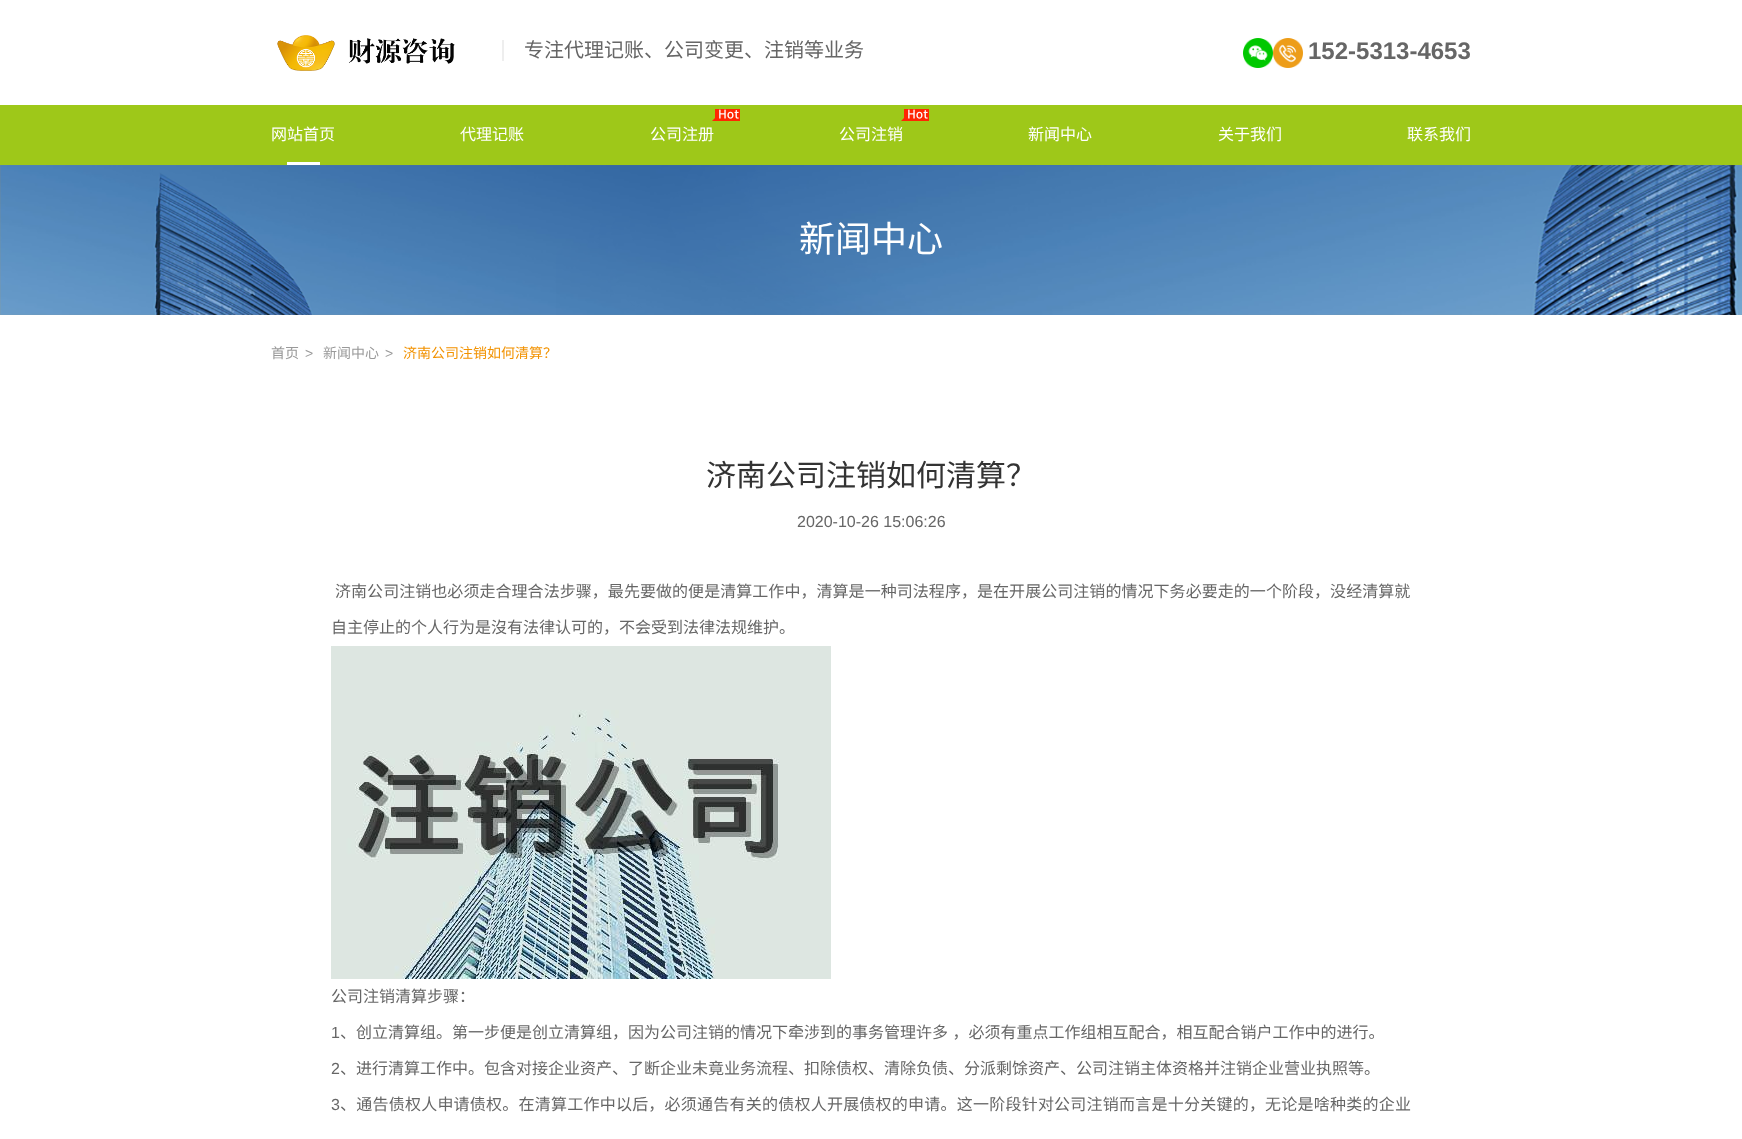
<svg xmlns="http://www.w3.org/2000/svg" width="1742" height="1139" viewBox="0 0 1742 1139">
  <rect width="100%" height="100%" fill="#ffffff"/>
  <image x="277" y="35" width="178" height="36" href="img1.png"/>
  <rect x="502" y="40" width="2" height="21" fill="#eeeeee"/>
  <text x="524" y="57" font-family="Noto Sans CJK SC" font-size="20" fill="#666666">专注代理记账、公司变更、注销等业务</text>
  <image x="1243" y="38" width="30" height="30" href="img2.png"/>
  <image x="1273" y="38" width="30" height="30" href="img3.png"/>
  <text x="1308" y="59" font-family="Liberation Sans" font-size="24" font-weight="bold" fill="#666666">152-5313-4653</text>
  <rect x="0" y="105" width="1742" height="60" fill="#9ec819"/>
  <text x="271" y="140" font-family="Noto Sans CJK SC" font-size="16" fill="#ffffff">网站首页</text>
  <rect x="287" y="162" width="33" height="3" fill="#ffffff"/>
  <text x="460" y="140" font-family="Noto Sans CJK SC" font-size="16" fill="#ffffff">代理记账</text>
  <image x="712" y="109" width="28" height="12" href="img4.png"/>
  <text x="650" y="140" font-family="Noto Sans CJK SC" font-size="16" fill="#ffffff">公司注册</text>
  <image x="901" y="109" width="28" height="12" href="img4.png"/>
  <text x="839" y="140" font-family="Noto Sans CJK SC" font-size="16" fill="#ffffff">公司注销</text>
  <text x="1028" y="140" font-family="Noto Sans CJK SC" font-size="16" fill="#ffffff">新闻中心</text>
  <text x="1218" y="140" font-family="Noto Sans CJK SC" font-size="16" fill="#ffffff">关于我们</text>
  <text x="1407" y="140" font-family="Noto Sans CJK SC" font-size="16" fill="#ffffff">联系我们</text>
  <image x="0" y="165" width="1742" height="150" href="img5.png"/>
  <text x="799" y="252" font-family="Noto Sans CJK SC" font-size="36" fill="#ffffff">新闻中心</text>
  <text x="271" y="358" font-family="Noto Sans CJK SC" font-size="14" fill="#999999">首页</text>
  <text x="305" y="358" font-family="Liberation Sans" font-size="14" fill="#999999">&gt;</text>
  <text x="323" y="358" font-family="Noto Sans CJK SC" font-size="14" fill="#999999">新闻中心</text>
  <text x="385" y="358" font-family="Liberation Sans" font-size="14" fill="#999999">&gt;</text>
  <text x="403" y="358" font-family="Noto Sans CJK SC" font-size="14" fill="#f29200">济南公司注销如何清算？</text>
  <text x="706" y="486" font-family="Noto Sans CJK SC" font-size="30" fill="#333333">济南公司注销如何清算？</text>
  <text x="797" y="527" font-family="Liberation Sans" font-size="16" fill="#666666">2020-10-26 15:06:26</text>
  <text x="335" y="597" font-family="Noto Sans CJK SC" font-size="16" letter-spacing="0.05" fill="#666666">济南公司注销也必须走合理合法步骤，最先要做的便是清算工作中，清算是一种司法程序，是在开展公司注销的情况下务必要走的一个阶段，没经清算就</text>
  <text x="331" y="633" font-family="Noto Sans CJK SC" font-size="16" fill="#666666">自主停止的个人行为是沒有法律认可的，不会受到法律法规维护。</text>
  <image x="331" y="646" width="500" height="333" href="img6.png"/>
  <text x="331" y="1002" font-family="Noto Sans CJK SC" font-size="16" fill="#666666">公司注销清算步骤：</text>
  <text x="331" y="1038" font-family="Liberation Sans" font-size="16" fill="#666666">1</text>
  <text x="340" y="1038" word-spacing="1" font-family="Noto Sans CJK SC" font-size="16" fill="#666666">、创立清算组。第一步便是创立清算组，因为公司注销的情况下牵涉到的事务管理许多 ，必须有重点工作组相互配合，相互配合销户工作中的进行。</text>
  <text x="331" y="1074" font-family="Liberation Sans" font-size="16" fill="#666666">2</text>
  <text x="340" y="1074" font-family="Noto Sans CJK SC" font-size="16" fill="#666666">、进行清算工作中。包含对接企业资产、了断企业未竟业务流程、扣除债权、清除负债、分派剩馀资产、公司注销主体资格并注销企业营业执照等。</text>
  <text x="331" y="1110" font-family="Liberation Sans" font-size="16" letter-spacing="0.23" fill="#666666">3</text>
  <text x="340" y="1110" font-family="Noto Sans CJK SC" font-size="16" letter-spacing="0.23" fill="#666666">、通告债权人申请债权。在清算工作中以后，必须通告有关的债权人开展债权的申请。这一阶段针对公司注销而言是十分关键的，无论是啥种类的企业</text>
</svg>
